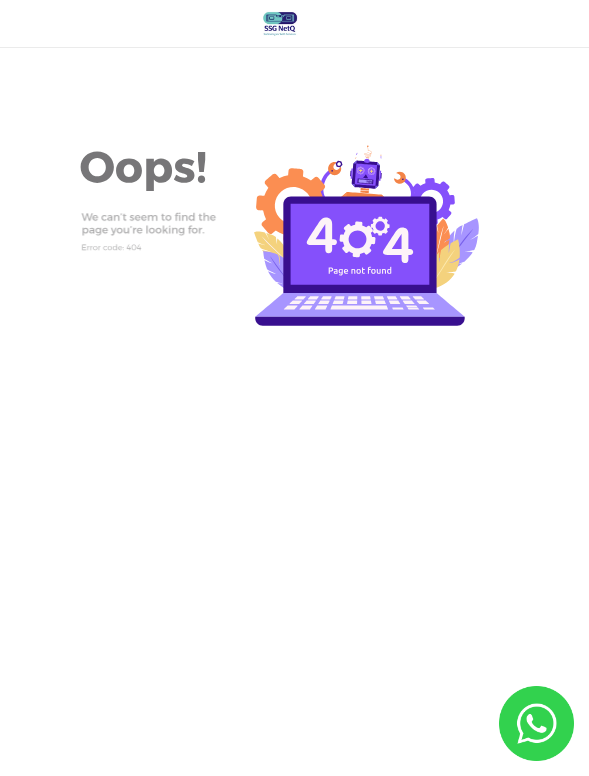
<svg xmlns="http://www.w3.org/2000/svg" width="589" height="776" viewBox="0 0 589 776">
  <rect width="100%" height="100%" fill="#ffffff"/>
  <rect x="0" y="47" width="589" height="1" fill="#ebebeb"/>
  <image x="263" y="10" width="36" height="26" href="img1.png"/>
  <image x="80" y="145" width="399" height="181" href="img2.png"/>
  <image x="499" y="686" width="75" height="75" href="img3.png"/>
</svg>
